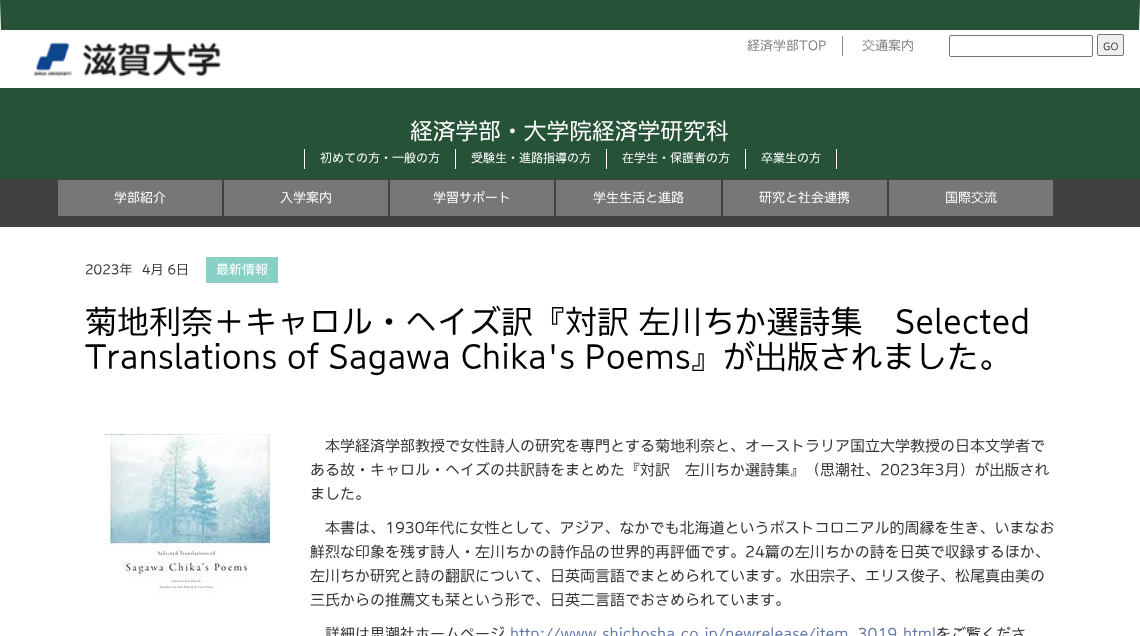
<svg xmlns="http://www.w3.org/2000/svg" width="1140" height="636" viewBox="0 0 1140 636">
  <rect width="100%" height="100%" fill="#ffffff"/>
  <path d="M0 0H1140L1139 30H1Z" fill="#265238"/>
  <image x="33" y="42" width="188" height="35" href="img1.png"/>
  <rect x="842" y="36" width="1" height="20" fill="#888888"/>
  <text x="747" y="50" font-family="'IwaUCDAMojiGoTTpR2'" font-size="13" fill="#808080">経済学部TOP</text>
  <text x="862" y="50" font-family="'IwaUCDAMojiGoTTpR2'" font-size="13" fill="#808080">交通案内</text>
  <rect x="949.5" y="35.5" width="143" height="21" rx="1.5" fill="none" stroke="#767676"/>
  <rect x="1097.5" y="34.5" width="26" height="21" rx="1.5" fill="#efefef" stroke="#767676"/>
  <text x="1103" y="50" font-family="'IwaUCDAMojiGoTTpR2'" font-size="10" fill="#333333">GO</text>
  <rect x="0" y="88" width="1140" height="91" fill="#265238"/>
  <text x="410" y="139" font-family="'IwaUCDAMojiGoTTpR2'" font-size="22.75" fill="#ffffff">経済学部・大学院経済学研究科</text>
  <rect x="455" y="149" width="1" height="20" fill="#ffffff"/>
  <rect x="304" y="149" width="1" height="20" fill="#ffffff"/>
  <text x="320" y="162" font-family="'IwaUCDAMojiGoTTpR2'" font-size="12" fill="#ffffff">初めての方・一般の方</text>
  <rect x="606" y="149" width="1" height="20" fill="#ffffff"/>
  <text x="471" y="162" font-family="'IwaUCDAMojiGoTTpR2'" font-size="12" fill="#ffffff">受験生・進路指導の方</text>
  <rect x="745" y="149" width="1" height="20" fill="#ffffff"/>
  <text x="622" y="162" font-family="'IwaUCDAMojiGoTTpR2'" font-size="12" fill="#ffffff">在学生・保護者の方</text>
  <rect x="836" y="149" width="1" height="20" fill="#ffffff"/>
  <text x="761" y="162" font-family="'IwaUCDAMojiGoTTpR2'" font-size="12" fill="#ffffff">卒業生の方</text>
  <rect x="0" y="179" width="1140" height="48" fill="#414141"/>
  <rect x="58" y="180" width="164" height="36" fill="#777777"/>
  <text x="114" y="202" font-family="'IwaUCDAMojiGoTTpR2'" font-size="13" fill="#ffffff">学部紹介</text>
  <rect x="224" y="180" width="164" height="36" fill="#777777"/>
  <text x="280" y="202" font-family="'IwaUCDAMojiGoTTpR2'" font-size="13" fill="#ffffff">入学案内</text>
  <rect x="390" y="180" width="164" height="36" fill="#777777"/>
  <text x="433" y="202" font-family="'IwaUCDAMojiGoTTpR2'" font-size="13" fill="#ffffff">学習サポート</text>
  <rect x="556" y="180" width="165" height="36" fill="#777777"/>
  <text x="593" y="202" font-family="'IwaUCDAMojiGoTTpR2'" font-size="13" fill="#ffffff">学生生活と進路</text>
  <rect x="723" y="180" width="164" height="36" fill="#777777"/>
  <text x="759" y="202" font-family="'IwaUCDAMojiGoTTpR2'" font-size="13" fill="#ffffff">研究と社会連携</text>
  <rect x="889" y="180" width="164" height="36" fill="#777777"/>
  <text x="945" y="202" font-family="'IwaUCDAMojiGoTTpR2'" font-size="13" fill="#ffffff">国際交流</text>
  <text x="85" y="274" font-family="'IwaUCDAMojiGoTTpR2'" font-size="13" fill="#333333">2023年</text>
  <text x="142" y="274" font-family="'IwaUCDAMojiGoTTpR2'" font-size="13" fill="#333333">4月 6日</text>
  <rect x="206" y="257" width="72" height="26" fill="#88cfc5"/>
  <text x="216" y="274" font-family="'IwaUCDAMojiGoTTpR2'" font-size="13" fill="#ffffff">最新情報</text>
  <text x="85" y="333" font-family="'IwaUCDAMojiGoTTpR2'" font-size="32" fill="#000000">菊地利奈＋キャロル・ヘイズ訳『対訳 左川ちか選詩集　Selected</text>
  <text x="85" y="368" font-family="'IwaUCDAMojiGoTTpR2'" font-size="32" fill="#000000">Translations of Sagawa Chika's Poems』が出版されました。</text>
  <image x="105" y="434" width="165" height="160" href="img2.png"/>
  <text x="325" y="451" font-family="'IwaUCDAMojiGoTTpR2'" font-size="15" fill="#333333">本学経済学部教授で女性詩人の研究を専門とする菊地利奈と、オーストラリア国立大学教授の日本文学者で</text>
  <text x="310" y="475" font-family="'IwaUCDAMojiGoTTpR2'" font-size="15" fill="#333333">ある故・キャロル・ヘイズの共訳詩をまとめた『対訳　左川ちか選詩集』（思潮社、2023年3月）が出版され</text>
  <text x="310" y="499" font-family="'IwaUCDAMojiGoTTpR2'" font-size="15" fill="#333333">ました。</text>
  <text x="325" y="533" font-family="'IwaUCDAMojiGoTTpR2'" font-size="15" fill="#333333">本書は、1930年代に女性として、アジア、なかでも北海道というポストコロニアル的周縁を生き、いまなお</text>
  <text x="310" y="557" font-family="'IwaUCDAMojiGoTTpR2'" font-size="15" fill="#333333">鮮烈な印象を残す詩人・左川ちかの詩作品の世界的再評価です。24篇の左川ちかの詩を日英で収録するほか、</text>
  <text x="310" y="581" font-family="'IwaUCDAMojiGoTTpR2'" font-size="15" fill="#333333">左川ちか研究と詩の翻訳について、日英両言語でまとめられています。水田宗子、エリス俊子、松尾真由美の</text>
  <text x="310" y="605" font-family="'IwaUCDAMojiGoTTpR2'" font-size="15" fill="#333333">三氏からの推薦文も栞という形で、日英二言語でおさめられています。</text>
  <text x="325" y="639" font-family="'IwaUCDAMojiGoTTpR2'" font-size="15" fill="#333333">詳細は思潮社ホームページ</text>
  <text x="510" y="639" font-family="'IwaUCDAMojiGoTTpR2'" font-size="15" fill="#5f76a6">http://www.shichosha.co.jp/newrelease/item_3019.html</text>
  <text x="936" y="639" font-family="'IwaUCDAMojiGoTTpR2'" font-size="15" fill="#333333">をご覧くださ</text>
</svg>
